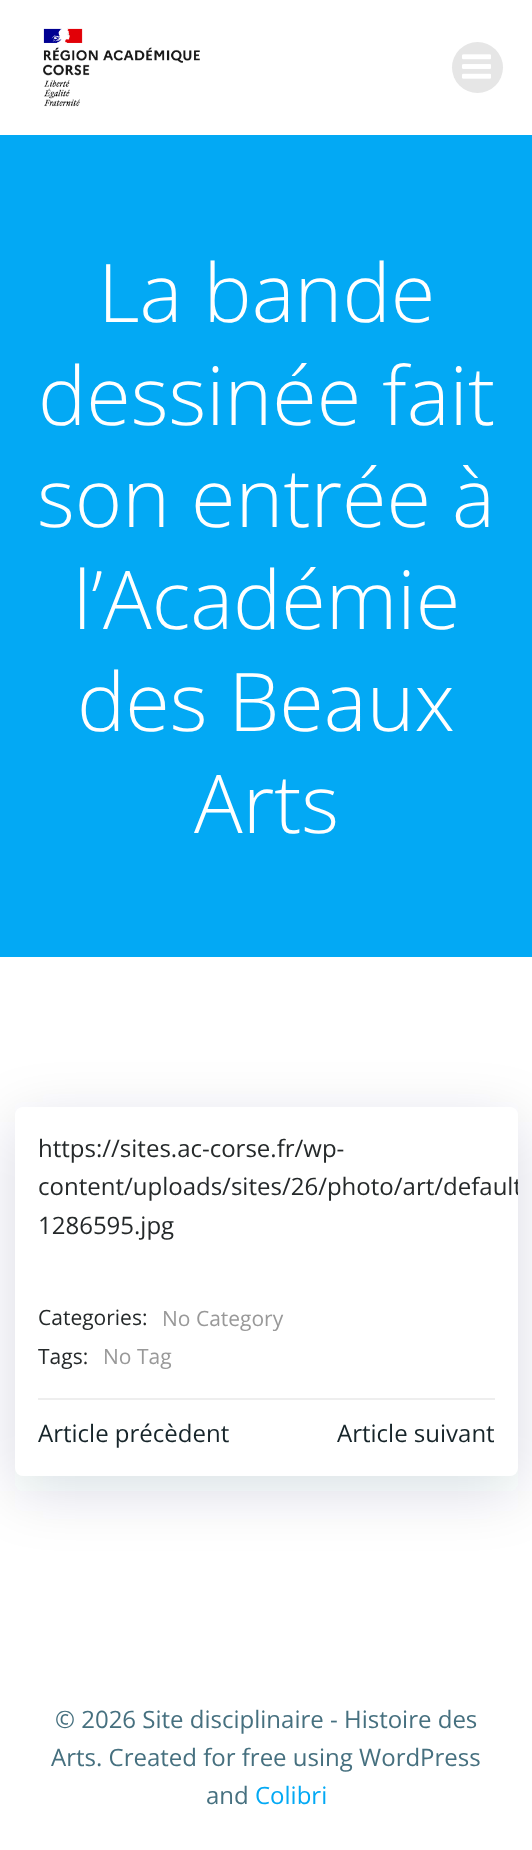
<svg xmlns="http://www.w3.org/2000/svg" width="532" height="1850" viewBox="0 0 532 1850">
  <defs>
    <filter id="blur1" x="-50%" y="-200%" width="200%" height="500%"><feGaussianBlur stdDeviation="30"/></filter>
    <clipPath id="clip1"><rect x="15" y="1107" width="503" height="369" rx="8"/></clipPath>
  </defs>
  <rect width="100%" height="100%" fill="#ffffff"/>
  <image x="43" y="28" width="157" height="79" href="img1.png"/>
  <circle cx="477.5" cy="67.5" r="25.5" fill="#e6e6e6"/>
  <image x="462" y="54" width="29" height="25" href="img2.png"/>
  <rect x="0" y="135" width="532" height="822" fill="#03a9f4"/>
  <text x="98" y="322" font-family="Open Sans" font-size="81" font-weight="300" fill="#ffffff">La bande</text>
  <text x="38" y="425" font-family="Open Sans" font-size="81" font-weight="300" fill="#ffffff">dessinée fait</text>
  <text x="37" y="527" font-family="Open Sans" font-size="81" font-weight="300" fill="#ffffff">son entrée à</text>
  <text x="73" y="629" font-family="Open Sans" font-size="81" font-weight="300" fill="#ffffff">l’Académie</text>
  <text x="77" y="731" font-family="Open Sans" font-size="81" font-weight="300" fill="#ffffff">des Beaux</text>
  <text x="194" y="833" font-family="Open Sans" font-size="81" font-weight="300" fill="#ffffff">Arts</text>
  <rect x="15" y="1122" width="503" height="369" rx="8" fill="#01334a" fill-opacity="0.15" filter="url(#blur1)"/>
  <rect x="15" y="1107" width="503" height="369" rx="8" fill="#ffffff"/>
  <text x="38" y="1157" font-family="Open Sans" font-size="24" fill="#25292a">https://sites.ac-corse.fr/wp-</text>
  <g clip-path="url(#clip1)">
    <text x="38" y="1195" font-family="Open Sans" font-size="24" fill="#25292a">content/uploads/sites/26/photo/art/default</text>
  </g>
  <text x="38" y="1234" font-family="Open Sans" font-size="24" fill="#25292a">1286595.jpg</text>
  <text x="38" y="1325" font-family="Open Sans" font-size="21" fill="#25292a">Categories:</text>
  <text x="162" y="1326" font-family="Open Sans" font-size="21" fill="#999999">No Category</text>
  <text x="38" y="1364" font-family="Open Sans" font-size="21" fill="#25292a">Tags:</text>
  <text x="103" y="1364" font-family="Open Sans" font-size="21" fill="#999999">No Tag</text>
  <rect x="38" y="1398" width="457" height="2" fill="#eeeeee"/>
  <text x="38" y="1442" font-family="Open Sans" font-size="24" fill="#17252a">Article précèdent</text>
  <text x="337" y="1442" font-family="Open Sans" font-size="24" fill="#17252a">Article suivant</text>
  <text x="55" y="1728" font-family="Open Sans" font-size="24" fill="#46707f">© 2026 Site disciplinaire - Histoire des</text>
  <text x="51" y="1766" font-family="Open Sans" font-size="24" fill="#46707f">Arts. Created for free using WordPress</text>
  <text x="206" y="1804" font-family="Open Sans" font-size="24" fill="#46707f">and</text>
  <text x="255" y="1804" font-family="Open Sans" font-size="24" fill="#03a9f4">Colibri</text>
</svg>
